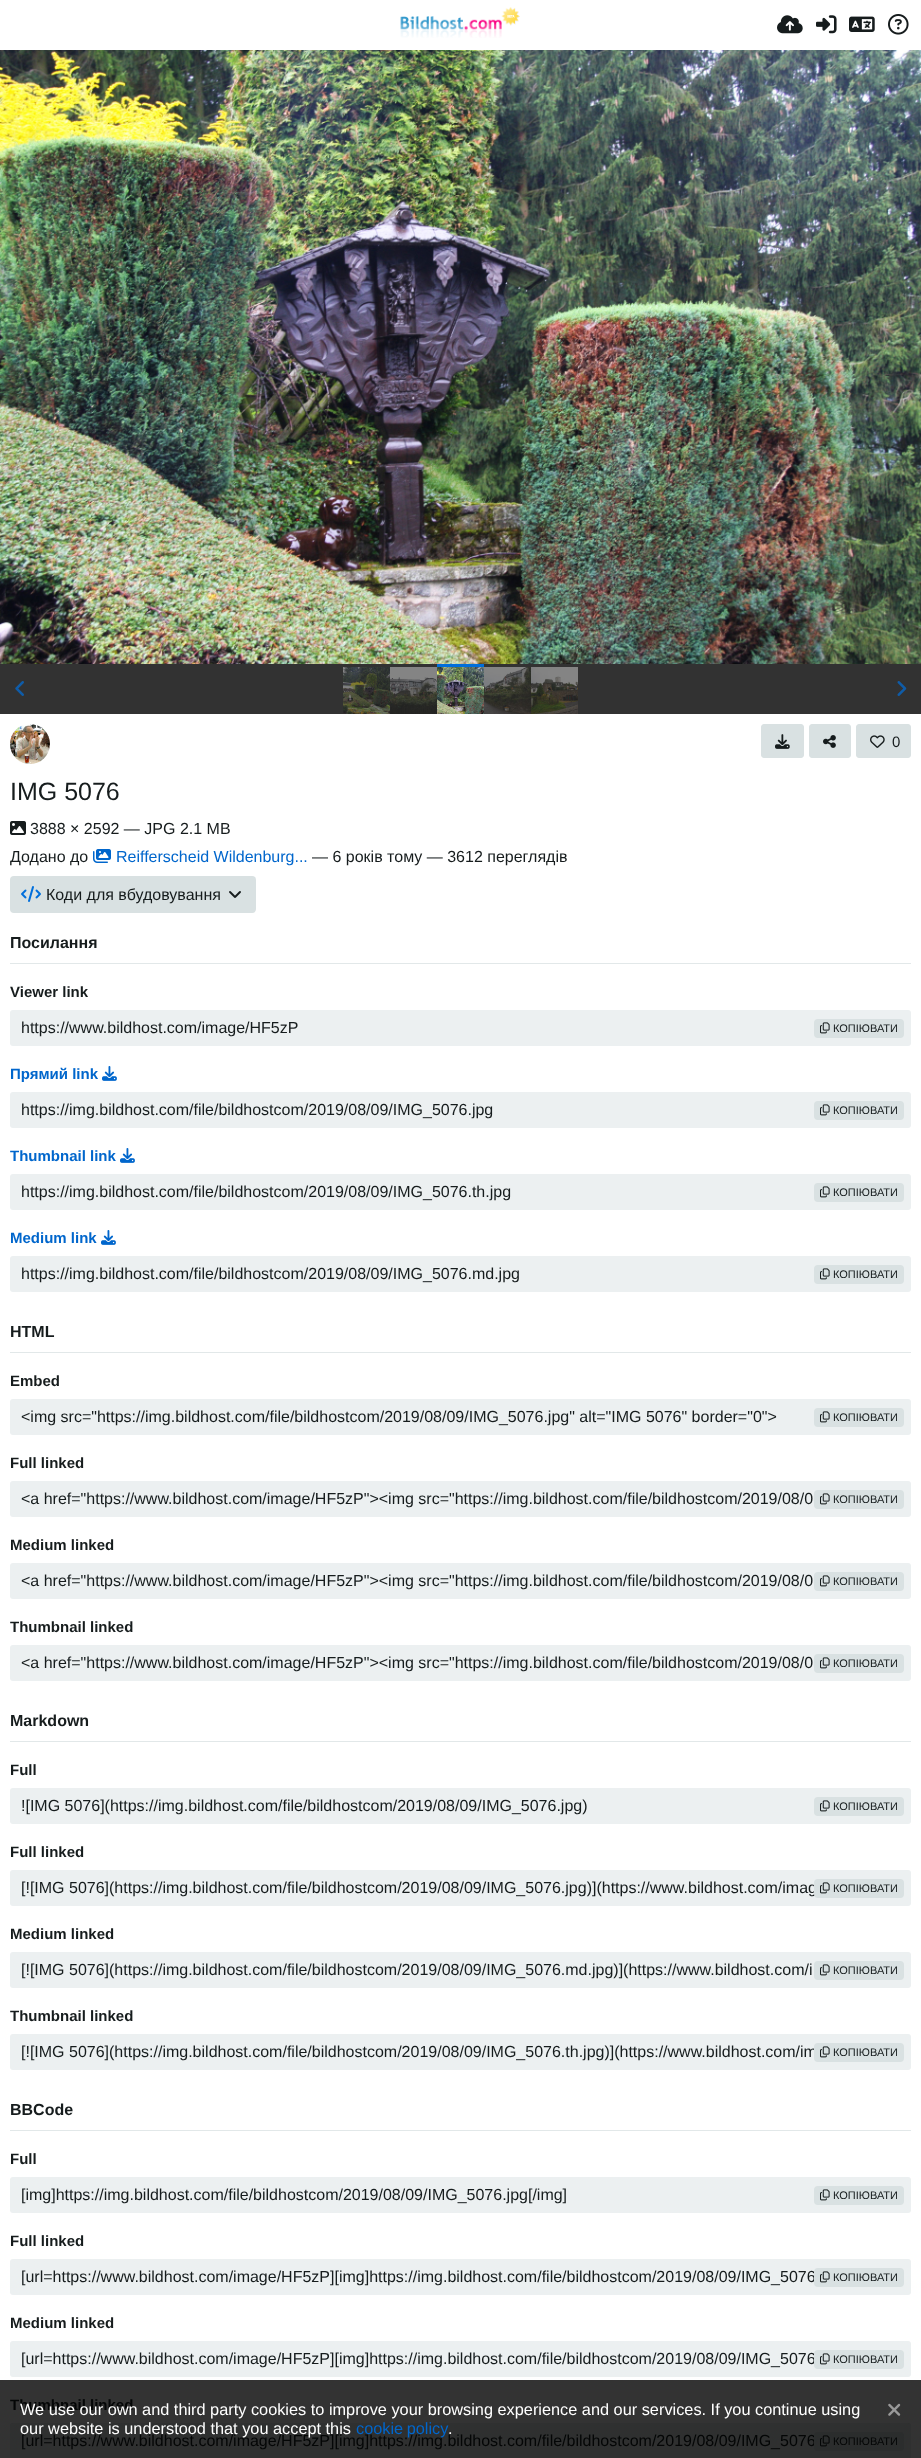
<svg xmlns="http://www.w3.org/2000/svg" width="921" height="2458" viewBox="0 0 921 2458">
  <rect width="100%" height="100%" fill="#ffffff"/>
  <rect x="0" y="2380" width="921" height="78" fill="#333333"/>
  <image x="400" y="7" width="120" height="31" href="img1.png"/>
  <image x="777" y="15" width="26" height="19" href="img2.png"/>
  <image x="816" y="15" width="21" height="19" href="img3.png"/>
  <image x="849" y="16" width="26" height="16" href="img4.png"/>
  <image x="888" y="14" width="21" height="21" href="img5.png"/>
  <image x="0" y="50" width="921" height="614" href="img6.png"/>
  <rect x="0" y="664" width="921" height="50" fill="#323232"/>
  <image x="343" y="667" width="47" height="47" href="img7.png"/>
  <image x="390" y="667" width="47" height="47" href="img8.png"/>
  <rect x="437" y="664" width="47" height="3" fill="#006edb"/>
  <image x="437" y="667" width="47" height="47" href="img9.png"/>
  <image x="484" y="667" width="47" height="47" href="img10.png"/>
  <image x="531" y="667" width="47" height="47" href="img11.png"/>
  <image x="15" y="681" width="9" height="15" href="img12.png"/>
  <image x="897" y="681" width="10" height="15" href="img13.png"/>
  <image x="10" y="724" width="40" height="40" href="img14.png"/>
  <rect x="761.5" y="724.5" width="42" height="33" rx="2.5" fill="#d9e1e2" stroke="#d9e1e2"/>
  <image x="775" y="734" width="15" height="15" href="img15.png"/>
  <rect x="809.5" y="724.5" width="41" height="33" rx="2.5" fill="#d9e1e2" stroke="#d9e1e2"/>
  <image x="823" y="735" width="13" height="13" href="img16.png"/>
  <rect x="856.5" y="724.5" width="54" height="33" rx="2.5" fill="#d9e1e2" stroke="#d9e1e2"/>
  <image x="870" y="735" width="15" height="13" href="img17.png"/>
  <text x="892" y="747" font-family="Liberation Sans" font-size="15" fill="#161c1d">0</text>
  <text x="10" y="800" font-family="Liberation Sans" font-size="25" fill="#161c1d">IMG 5076</text>
  <image x="10" y="821" width="16" height="14" href="img18.png"/>
  <text x="30" y="834" font-family="Liberation Sans" font-size="16" fill="#161c1d">3888 × 2592 — JPG 2.1 MB</text>
  <text x="10" y="862" font-family="Liberation Sans" font-size="16" fill="#161c1d">Додано до</text>
  <image x="93" y="849" width="18" height="14" href="img19.png"/>
  <text x="116" y="862" font-family="Liberation Sans" font-size="16" fill="#0066cc">Reifferscheid Wildenburg...</text>
  <text x="312" y="862" font-family="Liberation Sans" font-size="16" fill="#161c1d">— 6 років тому — 3612 переглядів</text>
  <rect x="10" y="876" width="246" height="37" rx="4" fill="#d9e1e2"/>
  <image x="21" y="886" width="20" height="16" href="img20.png"/>
  <text x="46" y="900" font-family="Liberation Sans" font-size="16" fill="#161c1d">Коди для вбудовування</text>
  <image x="229" y="891" width="12" height="7" href="img21.png"/>
  <rect x="10" y="963" width="901" height="1" fill="#e2e8e9"/>
  <text x="10" y="948" font-family="Liberation Sans" font-size="16" font-weight="bold" fill="#161c1d">Посилання</text>
  <text x="10" y="997" font-family="Liberation Sans" font-size="15" font-weight="bold" fill="#161c1d">Viewer link</text>
  <rect x="10" y="1010" width="901" height="36" rx="3" fill="#ecf0f1"/>
  <text x="21" y="1033" font-family="Liberation Sans" font-size="16" fill="#161c1d">https://www.bildhost.com/image/HF5zP</text>
  <rect x="814" y="1019" width="90" height="19" rx="4" fill="#d9e1e2"/>
  <image x="820" y="1022" width="10" height="12" href="img22.png"/>
  <text x="833" y="1032" font-family="Liberation Sans" font-size="11" fill="#161c1d">КОПІЮВАТИ</text>
  <text x="10" y="1079" font-family="Liberation Sans" font-size="15" font-weight="bold" fill="#0066cc">Прямий link</text>
  <image x="102" y="1066" width="15" height="15" href="img23.png"/>
  <rect x="10" y="1092" width="901" height="36" rx="3" fill="#ecf0f1"/>
  <text x="21" y="1115" font-family="Liberation Sans" font-size="16" fill="#161c1d">https://img.bildhost.com/file/bildhostcom/2019/08/09/IMG_5076.jpg</text>
  <rect x="814" y="1101" width="90" height="19" rx="4" fill="#d9e1e2"/>
  <image x="820" y="1104" width="10" height="12" href="img22.png"/>
  <text x="833" y="1114" font-family="Liberation Sans" font-size="11" fill="#161c1d">КОПІЮВАТИ</text>
  <text x="10" y="1161" font-family="Liberation Sans" font-size="15" font-weight="bold" fill="#0066cc">Thumbnail link</text>
  <image x="120" y="1148" width="15" height="15" href="img23.png"/>
  <rect x="10" y="1174" width="901" height="36" rx="3" fill="#ecf0f1"/>
  <text x="21" y="1197" font-family="Liberation Sans" font-size="16" fill="#161c1d">https://img.bildhost.com/file/bildhostcom/2019/08/09/IMG_5076.th.jpg</text>
  <rect x="814" y="1183" width="90" height="19" rx="4" fill="#d9e1e2"/>
  <image x="820" y="1186" width="10" height="12" href="img22.png"/>
  <text x="833" y="1196" font-family="Liberation Sans" font-size="11" fill="#161c1d">КОПІЮВАТИ</text>
  <text x="10" y="1243" font-family="Liberation Sans" font-size="15" font-weight="bold" fill="#0066cc">Medium link</text>
  <image x="101" y="1230" width="15" height="15" href="img23.png"/>
  <rect x="10" y="1256" width="901" height="36" rx="3" fill="#ecf0f1"/>
  <text x="21" y="1279" font-family="Liberation Sans" font-size="16" fill="#161c1d">https://img.bildhost.com/file/bildhostcom/2019/08/09/IMG_5076.md.jpg</text>
  <rect x="814" y="1265" width="90" height="19" rx="4" fill="#d9e1e2"/>
  <image x="820" y="1268" width="10" height="12" href="img22.png"/>
  <text x="833" y="1278" font-family="Liberation Sans" font-size="11" fill="#161c1d">КОПІЮВАТИ</text>
  <rect x="10" y="1352" width="901" height="1" fill="#e2e8e9"/>
  <text x="10" y="1337" font-family="Liberation Sans" font-size="16" font-weight="bold" fill="#161c1d">HTML</text>
  <text x="10" y="1386" font-family="Liberation Sans" font-size="15" font-weight="bold" fill="#161c1d">Embed</text>
  <rect x="10" y="1399" width="901" height="36" rx="3" fill="#ecf0f1"/>
  <text x="21" y="1422" font-family="Liberation Sans" font-size="16" fill="#161c1d">&lt;img src="https://img.bildhost.com/file/bildhostcom/2019/08/09/IMG_5076.jpg" alt="IMG 5076" border="0"&gt;</text>
  <rect x="814" y="1408" width="90" height="19" rx="4" fill="#d9e1e2"/>
  <image x="820" y="1411" width="10" height="12" href="img22.png"/>
  <text x="833" y="1421" font-family="Liberation Sans" font-size="11" fill="#161c1d">КОПІЮВАТИ</text>
  <text x="10" y="1468" font-family="Liberation Sans" font-size="15" font-weight="bold" fill="#161c1d">Full linked</text>
  <rect x="10" y="1481" width="901" height="36" rx="3" fill="#ecf0f1"/>
  <text x="21" y="1504" font-family="Liberation Sans" font-size="16" fill="#161c1d">&lt;a href="https://www.bildhost.com/image/HF5zP"&gt;&lt;img src="https://img.bildhost.com/file/bildhostcom/2019/08/0</text>
  <rect x="814" y="1490" width="90" height="19" rx="4" fill="#d9e1e2"/>
  <image x="820" y="1493" width="10" height="12" href="img22.png"/>
  <text x="833" y="1503" font-family="Liberation Sans" font-size="11" fill="#161c1d">КОПІЮВАТИ</text>
  <text x="10" y="1550" font-family="Liberation Sans" font-size="15" font-weight="bold" fill="#161c1d">Medium linked</text>
  <rect x="10" y="1563" width="901" height="36" rx="3" fill="#ecf0f1"/>
  <text x="21" y="1586" font-family="Liberation Sans" font-size="16" fill="#161c1d">&lt;a href="https://www.bildhost.com/image/HF5zP"&gt;&lt;img src="https://img.bildhost.com/file/bildhostcom/2019/08/0</text>
  <rect x="814" y="1572" width="90" height="19" rx="4" fill="#d9e1e2"/>
  <image x="820" y="1575" width="10" height="12" href="img22.png"/>
  <text x="833" y="1585" font-family="Liberation Sans" font-size="11" fill="#161c1d">КОПІЮВАТИ</text>
  <text x="10" y="1632" font-family="Liberation Sans" font-size="15" font-weight="bold" fill="#161c1d">Thumbnail linked</text>
  <rect x="10" y="1645" width="901" height="36" rx="3" fill="#ecf0f1"/>
  <text x="21" y="1668" font-family="Liberation Sans" font-size="16" fill="#161c1d">&lt;a href="https://www.bildhost.com/image/HF5zP"&gt;&lt;img src="https://img.bildhost.com/file/bildhostcom/2019/08/0</text>
  <rect x="814" y="1654" width="90" height="19" rx="4" fill="#d9e1e2"/>
  <image x="820" y="1657" width="10" height="12" href="img22.png"/>
  <text x="833" y="1667" font-family="Liberation Sans" font-size="11" fill="#161c1d">КОПІЮВАТИ</text>
  <rect x="10" y="1741" width="901" height="1" fill="#e2e8e9"/>
  <text x="10" y="1726" font-family="Liberation Sans" font-size="16" font-weight="bold" fill="#161c1d">Markdown</text>
  <text x="10" y="1775" font-family="Liberation Sans" font-size="15" font-weight="bold" fill="#161c1d">Full</text>
  <rect x="10" y="1788" width="901" height="36" rx="3" fill="#ecf0f1"/>
  <text x="21" y="1811" font-family="Liberation Sans" font-size="16" fill="#161c1d">![IMG 5076](https://img.bildhost.com/file/bildhostcom/2019/08/09/IMG_5076.jpg)</text>
  <rect x="814" y="1797" width="90" height="19" rx="4" fill="#d9e1e2"/>
  <image x="820" y="1800" width="10" height="12" href="img22.png"/>
  <text x="833" y="1810" font-family="Liberation Sans" font-size="11" fill="#161c1d">КОПІЮВАТИ</text>
  <text x="10" y="1857" font-family="Liberation Sans" font-size="15" font-weight="bold" fill="#161c1d">Full linked</text>
  <rect x="10" y="1870" width="901" height="36" rx="3" fill="#ecf0f1"/>
  <text x="21" y="1893" font-family="Liberation Sans" font-size="16" fill="#161c1d">[![IMG 5076](https://img.bildhost.com/file/bildhostcom/2019/08/09/IMG_5076.jpg)](https://www.bildhost.com/imag</text>
  <rect x="814" y="1879" width="90" height="19" rx="4" fill="#d9e1e2"/>
  <image x="820" y="1882" width="10" height="12" href="img22.png"/>
  <text x="833" y="1892" font-family="Liberation Sans" font-size="11" fill="#161c1d">КОПІЮВАТИ</text>
  <text x="10" y="1939" font-family="Liberation Sans" font-size="15" font-weight="bold" fill="#161c1d">Medium linked</text>
  <rect x="10" y="1952" width="901" height="36" rx="3" fill="#ecf0f1"/>
  <text x="21" y="1975" font-family="Liberation Sans" font-size="16" fill="#161c1d">[![IMG 5076](https://img.bildhost.com/file/bildhostcom/2019/08/09/IMG_5076.md.jpg)](https://www.bildhost.com/i</text>
  <rect x="814" y="1961" width="90" height="19" rx="4" fill="#d9e1e2"/>
  <image x="820" y="1964" width="10" height="12" href="img22.png"/>
  <text x="833" y="1974" font-family="Liberation Sans" font-size="11" fill="#161c1d">КОПІЮВАТИ</text>
  <text x="10" y="2021" font-family="Liberation Sans" font-size="15" font-weight="bold" fill="#161c1d">Thumbnail linked</text>
  <rect x="10" y="2034" width="901" height="36" rx="3" fill="#ecf0f1"/>
  <text x="21" y="2057" font-family="Liberation Sans" font-size="16" fill="#161c1d">[![IMG 5076](https://img.bildhost.com/file/bildhostcom/2019/08/09/IMG_5076.th.jpg)](https://www.bildhost.com/im</text>
  <rect x="814" y="2043" width="90" height="19" rx="4" fill="#d9e1e2"/>
  <image x="820" y="2046" width="10" height="12" href="img22.png"/>
  <text x="833" y="2056" font-family="Liberation Sans" font-size="11" fill="#161c1d">КОПІЮВАТИ</text>
  <rect x="10" y="2130" width="901" height="1" fill="#e2e8e9"/>
  <text x="10" y="2115" font-family="Liberation Sans" font-size="16" font-weight="bold" fill="#161c1d">BBCode</text>
  <text x="10" y="2164" font-family="Liberation Sans" font-size="15" font-weight="bold" fill="#161c1d">Full</text>
  <rect x="10" y="2177" width="901" height="36" rx="3" fill="#ecf0f1"/>
  <text x="21" y="2200" font-family="Liberation Sans" font-size="16" fill="#161c1d">[img]https://img.bildhost.com/file/bildhostcom/2019/08/09/IMG_5076.jpg[/img]</text>
  <rect x="814" y="2186" width="90" height="19" rx="4" fill="#d9e1e2"/>
  <image x="820" y="2189" width="10" height="12" href="img22.png"/>
  <text x="833" y="2199" font-family="Liberation Sans" font-size="11" fill="#161c1d">КОПІЮВАТИ</text>
  <text x="10" y="2246" font-family="Liberation Sans" font-size="15" font-weight="bold" fill="#161c1d">Full linked</text>
  <rect x="10" y="2259" width="901" height="36" rx="3" fill="#ecf0f1"/>
  <text x="21" y="2282" font-family="Liberation Sans" font-size="16" fill="#161c1d">[url=https://www.bildhost.com/image/HF5zP][img]https://img.bildhost.com/file/bildhostcom/2019/08/09/IMG_5076</text>
  <rect x="814" y="2268" width="90" height="19" rx="4" fill="#d9e1e2"/>
  <image x="820" y="2271" width="10" height="12" href="img22.png"/>
  <text x="833" y="2281" font-family="Liberation Sans" font-size="11" fill="#161c1d">КОПІЮВАТИ</text>
  <text x="10" y="2328" font-family="Liberation Sans" font-size="15" font-weight="bold" fill="#161c1d">Medium linked</text>
  <rect x="10" y="2341" width="901" height="36" rx="3" fill="#ecf0f1"/>
  <text x="21" y="2364" font-family="Liberation Sans" font-size="16" fill="#161c1d">[url=https://www.bildhost.com/image/HF5zP][img]https://img.bildhost.com/file/bildhostcom/2019/08/09/IMG_5076</text>
  <rect x="814" y="2350" width="90" height="19" rx="4" fill="#d9e1e2"/>
  <image x="820" y="2353" width="10" height="12" href="img22.png"/>
  <text x="833" y="2363" font-family="Liberation Sans" font-size="11" fill="#161c1d">КОПІЮВАТИ</text>
  <text x="10" y="2410" font-family="Liberation Sans" font-size="15" font-weight="bold" fill="#040606">Thumbnail linked</text>
  <rect x="10" y="2423" width="901" height="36" rx="3" fill="#2f3030"/>
  <text x="21" y="2446" font-family="Liberation Sans" font-size="16" fill="#040606">[url=https://www.bildhost.com/image/HF5zP][img]https://img.bildhost.com/file/bildhostcom/2019/08/09/IMG_5076</text>
  <rect x="814" y="2432" width="90" height="19" rx="4" fill="#2b2d2d"/>
  <image x="820" y="2435" width="10" height="12" href="img24.png"/>
  <text x="833" y="2445" font-family="Liberation Sans" font-size="11" fill="#040606">КОПІЮВАТИ</text>
  <text x="20" y="2415" font-family="Liberation Sans" font-size="16.32" fill="#ffffff">We use our own and third party cookies to improve your browsing experience and our services. If you continue using</text>
  <text x="20" y="2434" font-family="Liberation Sans" font-size="16.32" fill="#ffffff">our website is understood that you accept this</text>
  <text x="356" y="2434" word-spacing="-1" font-family="Liberation Sans" font-size="16.32" fill="#0066cc">cookie policy</text>
  <text x="448" y="2434" font-family="Liberation Sans" font-size="16.32" fill="#ffffff">.</text>
  <image x="888" y="2403" width="13" height="13" href="img25.png"/>
</svg>
